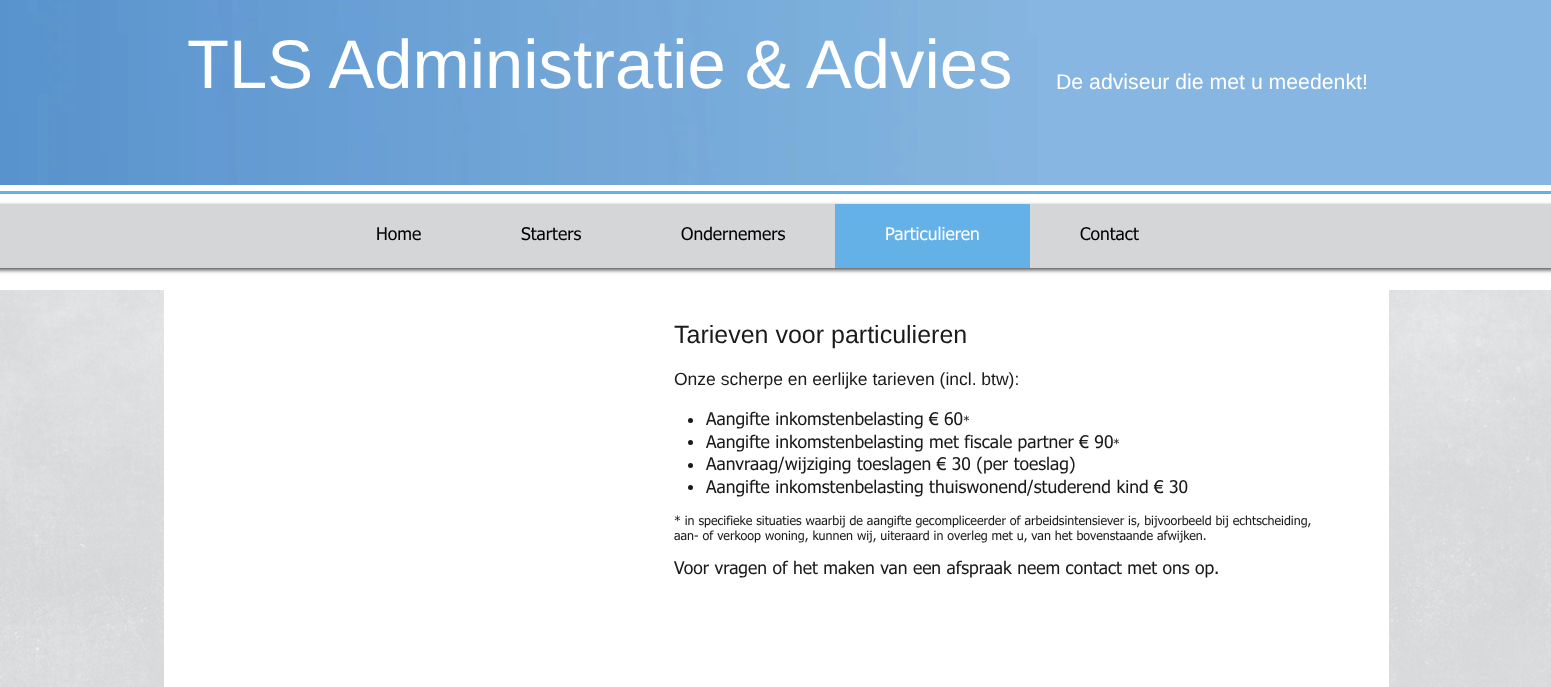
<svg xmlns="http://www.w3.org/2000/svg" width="1551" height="687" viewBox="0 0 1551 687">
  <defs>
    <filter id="blur1" x="-50%" y="-200%" width="200%" height="500%"><feGaussianBlur stdDeviation="2"/></filter>
  </defs>
  <rect width="100%" height="100%" fill="#d4d6d7"/>
  <image x="0" y="0" width="1551" height="185" href="img1.png"/>
  <text x="187" y="88" font-family="Liberation Sans" font-size="68.75" fill="#ffffff">TLS Administratie &amp; Advies</text>
  <text x="1056" y="89" font-family="Liberation Sans" font-size="21.25" fill="#ffffff">De adviseur die met u meedenkt!</text>
  <rect x="0" y="185" width="1551" height="105" fill="#ffffff"/>
  <rect x="0" y="191" width="1551" height="3" fill="#64b1e8"/>
  <rect x="-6" y="206" width="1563" height="64" fill="#000000" fill-opacity="0.7" filter="url(#blur1)"/>
  <rect x="0" y="204" width="1551" height="64" fill="#d4d6d7"/>
  <text x="376" y="240" font-family="tahoma" font-size="17.5" fill="#000000">Home</text>
  <text x="521" y="240" font-family="tahoma" font-size="17.5" fill="#000000">Starters</text>
  <text x="681" y="240" font-family="tahoma" font-size="17.5" fill="#000000">Ondernemers</text>
  <rect x="835" y="204" width="195" height="64" fill="#64b1e8"/>
  <text x="885" y="240" font-family="tahoma" font-size="17.5" fill="#ffffff">Particulieren</text>
  <text x="1080" y="240" font-family="tahoma" font-size="17.5" fill="#000000">Contact</text>
  <image x="0" y="290" width="1551" height="397" href="img2.png"/>
  <rect x="164" y="290" width="1225" height="397" fill="#ffffff"/>
  <text x="674" y="343" font-family="Liberation Sans" font-size="25" fill="#181a1c">Tarieven voor particulieren</text>
  <text x="674" y="385" font-family="Liberation Sans" font-size="17.5" fill="#181a1c">Onze scherpe en eerlijke tarieven (incl. btw):</text>
  <circle cx="690.5" cy="420.5" r="2.5" fill="#181a1c"/>
  <text x="706" y="425" font-family="tahoma" font-size="17.5" fill="#181a1c">Aangifte inkomstenbelasting € 60</text>
  <text x="963" y="425" font-family="tahoma" font-size="12.5" fill="#181a1c">*</text>
  <circle cx="690.5" cy="442.5" r="2.5" fill="#181a1c"/>
  <text x="706" y="448" font-family="tahoma" font-size="17.5" fill="#181a1c">Aangifte inkomstenbelasting met fiscale partner € 90</text>
  <text x="1113" y="448" font-family="tahoma" font-size="12.5" fill="#181a1c">*</text>
  <circle cx="690.5" cy="465.5" r="2.5" fill="#181a1c"/>
  <text x="706" y="470" font-family="tahoma" font-size="17.5" fill="#181a1c">Aanvraag/wijziging toeslagen € 30 (per toeslag)</text>
  <circle cx="690.5" cy="487.5" r="2.5" fill="#181a1c"/>
  <text x="706" y="493" font-family="tahoma" font-size="17.5" fill="#181a1c">Aangifte inkomstenbelasting thuiswonend/studerend kind € 30</text>
  <text x="674" y="525" font-family="tahoma" font-size="12.5" fill="#181a1c">* in specifieke situaties waarbij de aangifte gecompliceerder of arbeidsintensiever is, bijvoorbeeld bij echtscheiding,</text>
  <text x="674" y="540" font-family="tahoma" font-size="12.5" fill="#181a1c">aan- of verkoop woning, kunnen wij, uiteraard in overleg met u, van het bovenstaande afwijken.</text>
  <text x="674" y="574" font-family="tahoma" font-size="17.5" fill="#181a1c">Voor vragen of het maken van een afspraak neem contact met ons op.</text>
</svg>
